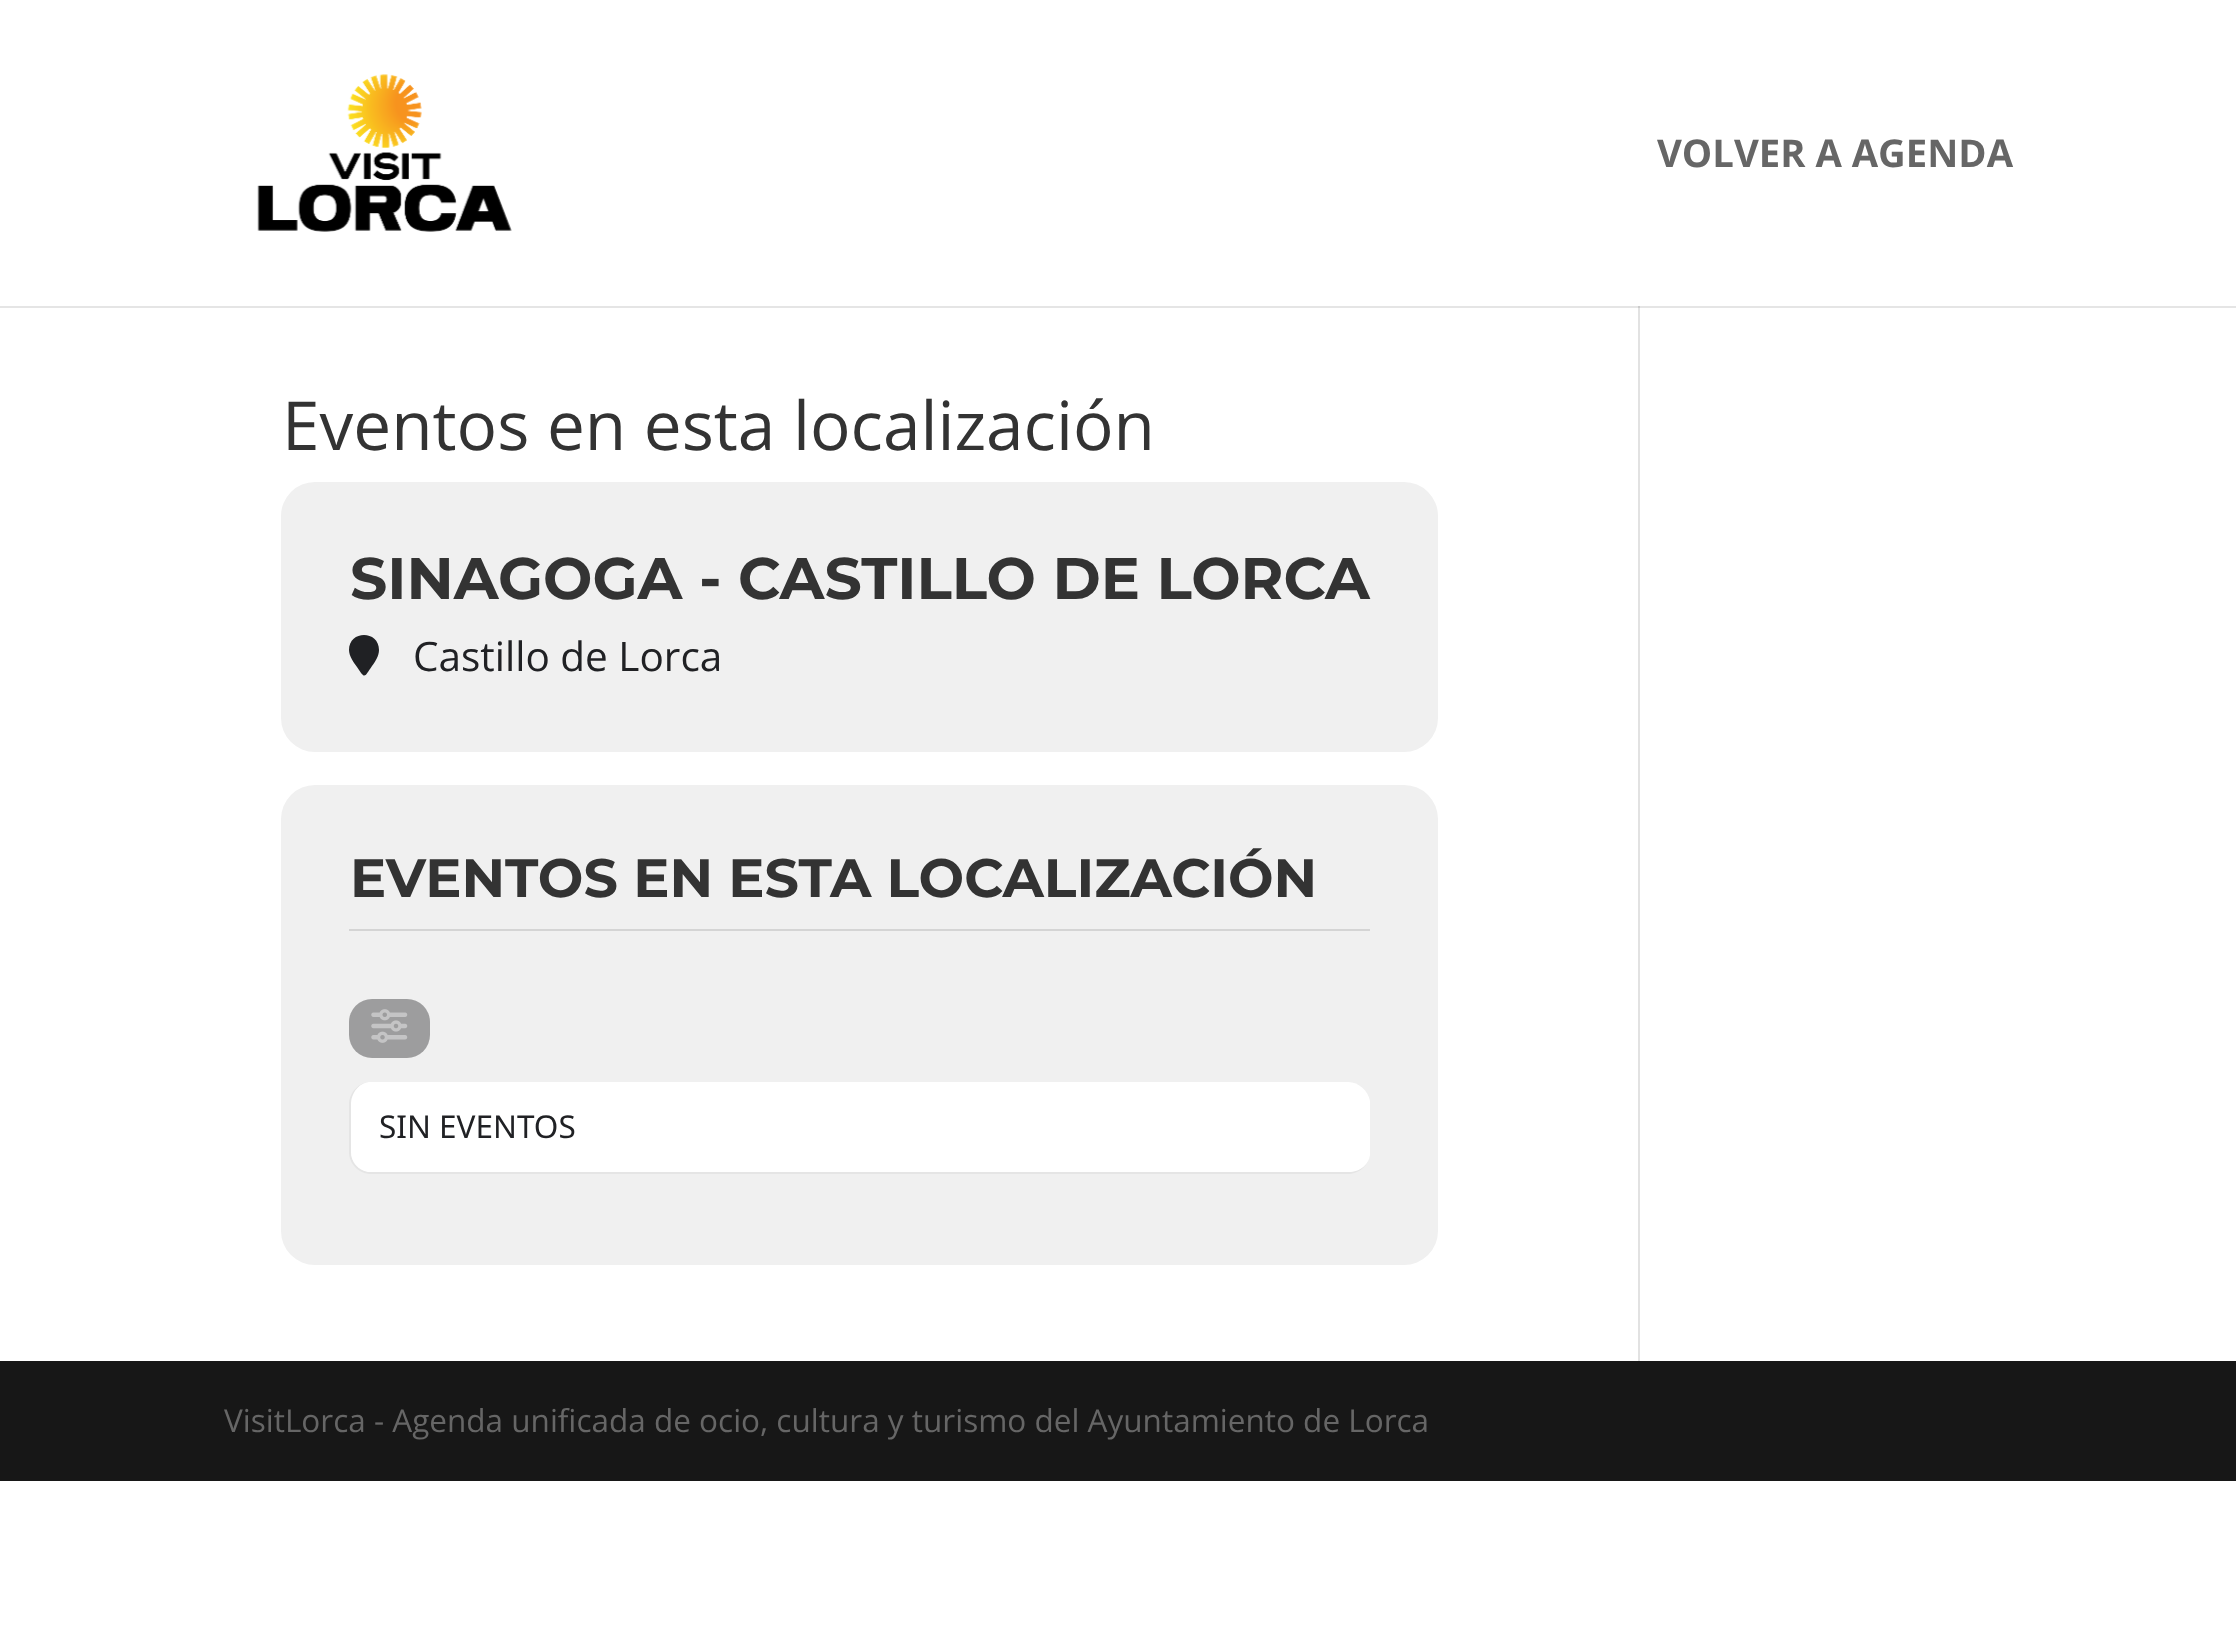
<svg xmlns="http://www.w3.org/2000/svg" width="2236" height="1632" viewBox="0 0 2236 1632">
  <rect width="100%" height="100%" fill="#ffffff"/>
  <rect x="1638" y="306" width="2" height="1055" fill="#e2e2e2"/>
  <path d="M0 306V308H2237V2H2236V306Z" fill="#000000" fill-opacity="0.1"/>
  <image x="257" y="74" width="255" height="158" href="img1.png"/>
  <text x="1657" y="167" font-family="Open Sans" font-size="38.25" font-weight="bold" fill="#666666">VOLVER A AGENDA</text>
  <text x="282" y="450" font-family="Open Sans" font-size="67.5" fill="#333333">Eventos en esta localización</text>
  <rect x="281" y="482" width="1157" height="270" rx="34" fill="#f0f0f0"/>
  <text x="350" y="599" font-family="Montserrat" font-size="58.5" font-weight="bold" fill="#333333">SINAGOGA - CASTILLO DE LORCA</text>
  <path d="M379 650C379 656 375 662 372 666C364 678 365 679 357 667C354 663 349 656 349 650C349 630 379 630 379 650Z" fill="#202124"/>
  <text x="413" y="671" font-family="Open Sans" font-size="40.5" fill="#202124">Castillo de Lorca</text>
  <rect x="281" y="785" width="1157" height="480" rx="34" fill="#f0f0f0"/>
  <rect x="349" y="929" width="1021" height="2" fill="#d4d4d4"/>
  <text x="350" y="897" font-family="Montserrat" font-size="54" font-weight="bold" fill="#333333">EVENTOS EN ESTA LOCALIZACIÓN</text>
  <rect x="349" y="999" width="81" height="59" rx="23" fill="#9d9d9e"/>
  <image x="371" y="1009" width="37" height="34" href="img2.png"/>
  <path d="M371 1082H1348C1360 1082 1370 1092 1370 1105V1152C1370 1164 1360 1174 1348 1174H371C359 1174 349 1164 349 1152V1105C349 1092 359 1082 371 1082ZM371 1082H1348C1360 1082 1370 1092 1370 1105V1152C1370 1163 1360 1172 1348 1172H371C360 1172 351 1163 351 1152V1105C351 1092 360 1082 371 1082Z" fill="#e5e5e5" fill-rule="evenodd"/>
  <path d="M371 1082C360 1082 351 1092 351 1105V1152C351 1162 358 1170 368 1172H1351C1361 1171 1369 1164 1370 1155V1101C1368 1091 1359 1082 1348 1082Z" fill="#ffffff"/>
  <text x="379" y="1138" font-family="Noto Sans" font-size="31.5" fill="#202124">SIN EVENTOS</text>
  <rect x="0" y="1361" width="2236" height="120" fill="#171717"/>
  <text x="224" y="1432" font-family="Open Sans" font-size="31.5" fill="#666666">VisitLorca - Agenda unificada de ocio, cultura y turismo del Ayuntamiento de Lorca</text>
</svg>
